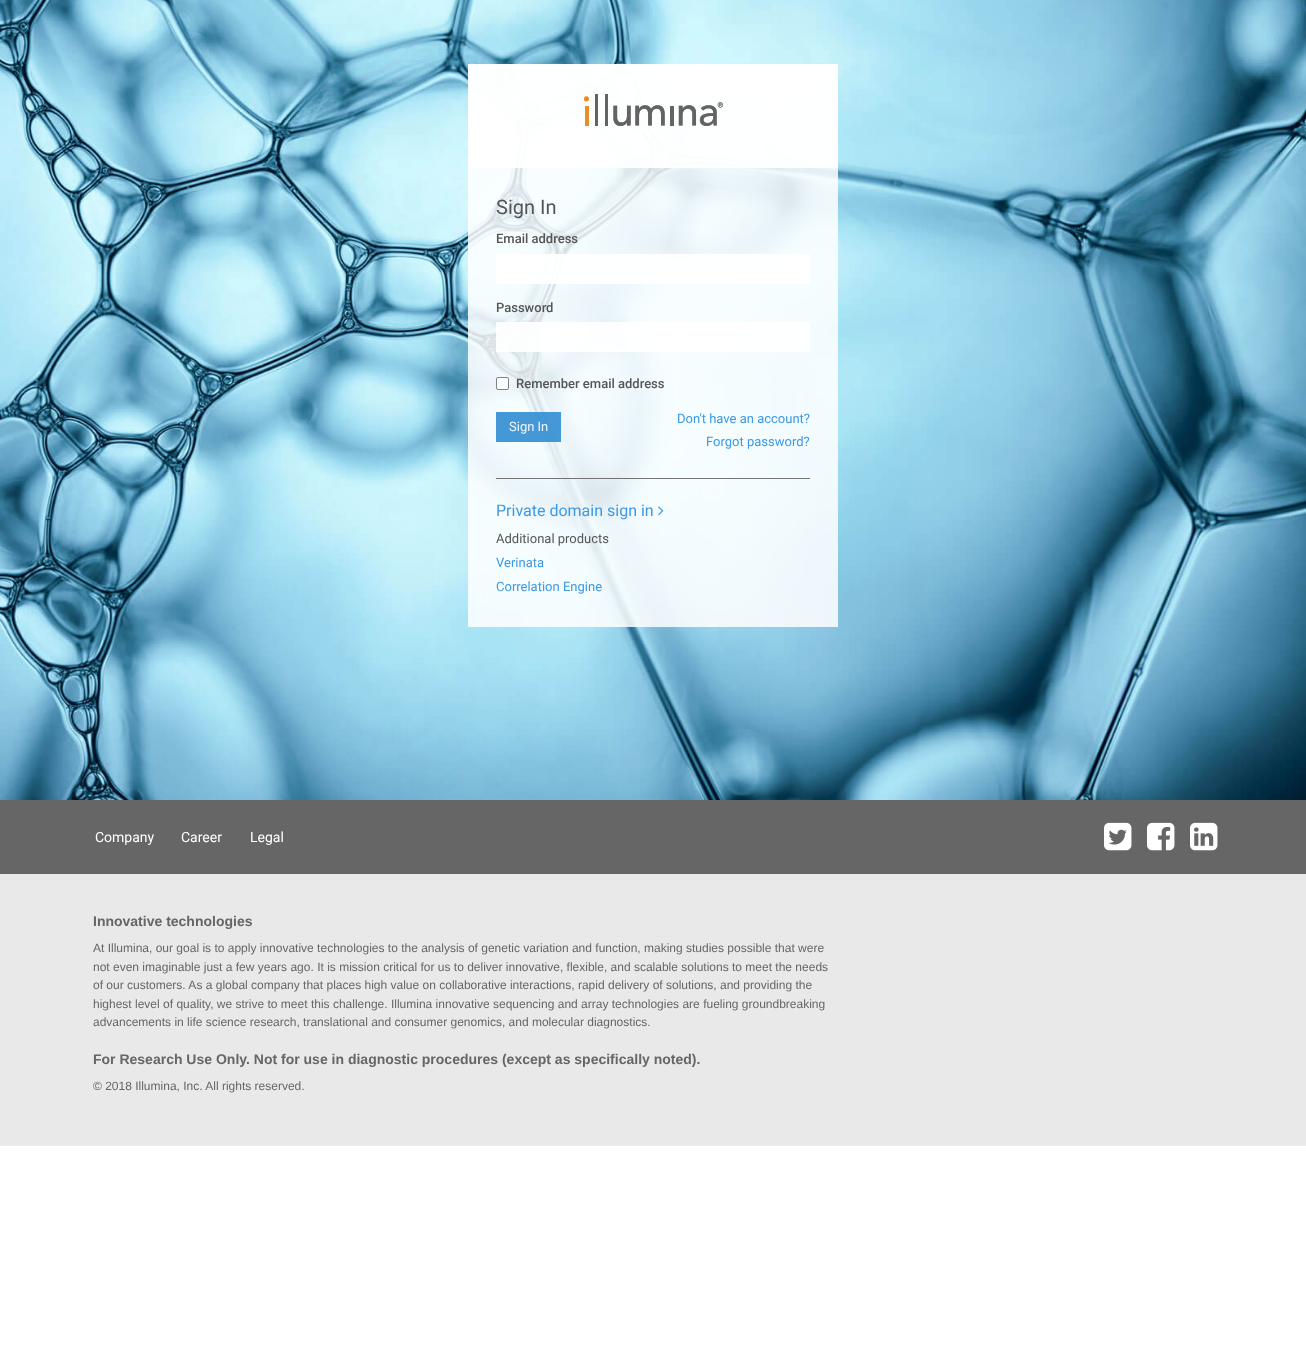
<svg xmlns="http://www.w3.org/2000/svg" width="1306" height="1355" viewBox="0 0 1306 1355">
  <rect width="100%" height="100%" fill="#ffffff"/>
  <image x="0" y="0" width="1306" height="800" href="img1.png"/>
  <rect x="468" y="64" width="370" height="563" fill="#ffffff" fill-opacity="0.85"/>
  <rect x="468" y="64" width="370" height="104" fill="#ffffff" fill-opacity="0.91"/>
  <image x="584" y="94" width="139" height="32" href="img2.png"/>
  <text x="496" y="214" font-family="Roboto" font-size="20" fill="#545555">Sign In</text>
  <text x="496" y="243" font-family="Roboto" font-size="13" font-weight="500" fill="#545555">Email address</text>
  <rect x="496" y="254" width="314" height="30" fill="#ffffff" fill-opacity="0.91"/>
  <text x="496" y="312" font-family="Roboto" font-size="13" font-weight="500" fill="#545555">Password</text>
  <rect x="496" y="322" width="314" height="30" fill="#ffffff" fill-opacity="0.91"/>
  <rect x="496.5" y="377.5" width="12" height="12" rx="1.5" fill="#ffffff" fill-opacity="0.91" stroke="#828282"/>
  <text x="516" y="388" font-family="Roboto" font-size="13" font-weight="500" fill="#545555">Remember email address</text>
  <rect x="496" y="412" width="65" height="30" fill="#328ed1" fill-opacity="0.91"/>
  <text x="509" y="431" font-family="Roboto" font-size="13" fill="#eff6fb">Sign In</text>
  <text x="677" y="423" font-family="Roboto" font-size="13" fill="#3c99e2">Don't have an account?</text>
  <text x="706" y="446" font-family="Roboto" font-size="13" fill="#3c99e2">Forgot password?</text>
  <rect x="496" y="478" width="314" height="1" fill="#666666" fill-opacity="0.91"/>
  <text x="496" y="516" font-family="Roboto" font-size="16" fill="#3c99e2">Private domain sign in</text>
  <image x="658" y="506" width="6" height="10" href="img3.png"/>
  <text x="496" y="543" font-family="Roboto" font-size="13" fill="#545555">Additional products</text>
  <text x="496" y="567" font-family="Roboto" font-size="13" fill="#3c99e2">Verinata</text>
  <text x="496" y="591" font-family="Roboto" font-size="13" fill="#3c99e2">Correlation Engine</text>
  <rect x="0" y="874" width="1306" height="272" fill="#e9e9e9"/>
  <rect x="0" y="800" width="1306" height="74" fill="#666666"/>
  <text x="95" y="842" font-family="Roboto" font-size="14" fill="#ffffff">Company</text>
  <text x="181" y="842" font-family="Roboto" font-size="14" fill="#ffffff">Career</text>
  <text x="250" y="842" font-family="Roboto" font-size="14" fill="#ffffff">Legal</text>
  <image x="1104" y="822" width="28" height="29" href="img4.png"/>
  <image x="1147" y="822" width="28" height="29" href="img5.png"/>
  <image x="1190" y="822" width="28" height="29" href="img6.png"/>
  <text x="93" y="926" font-family="Liberation Sans" font-size="14" font-weight="bold" fill="#666666">Innovative technologies</text>
  <text x="93" y="952" font-family="Liberation Sans" font-size="12" fill="#666666">At Illumina, our goal is to apply innovative technologies to the analysis of genetic variation and function, making studies possible that were</text>
  <text x="93" y="971" font-family="Liberation Sans" font-size="12" fill="#666666">not even imaginable just a few years ago. It is mission critical for us to deliver innovative, flexible, and scalable solutions to meet the needs</text>
  <text x="93" y="989" font-family="Liberation Sans" font-size="12" fill="#666666">of our customers. As a global company that places high value on collaborative interactions, rapid delivery of solutions, and providing the</text>
  <text x="93" y="1008" font-family="Liberation Sans" font-size="12" fill="#666666">highest level of quality, we strive to meet this challenge. Illumina innovative sequencing and array technologies are fueling groundbreaking</text>
  <text x="93" y="1026" font-family="Liberation Sans" font-size="12" fill="#666666">advancements in life science research, translational and consumer genomics, and molecular diagnostics.</text>
  <text x="93" y="1064" font-family="Liberation Sans" font-size="14" font-weight="bold" fill="#666666">For Research Use Only. Not for use in diagnostic procedures (except as specifically noted).</text>
  <text x="93" y="1090" font-family="Liberation Sans" font-size="12" fill="#666666">© 2018 Illumina, Inc. All rights reserved.</text>
</svg>
